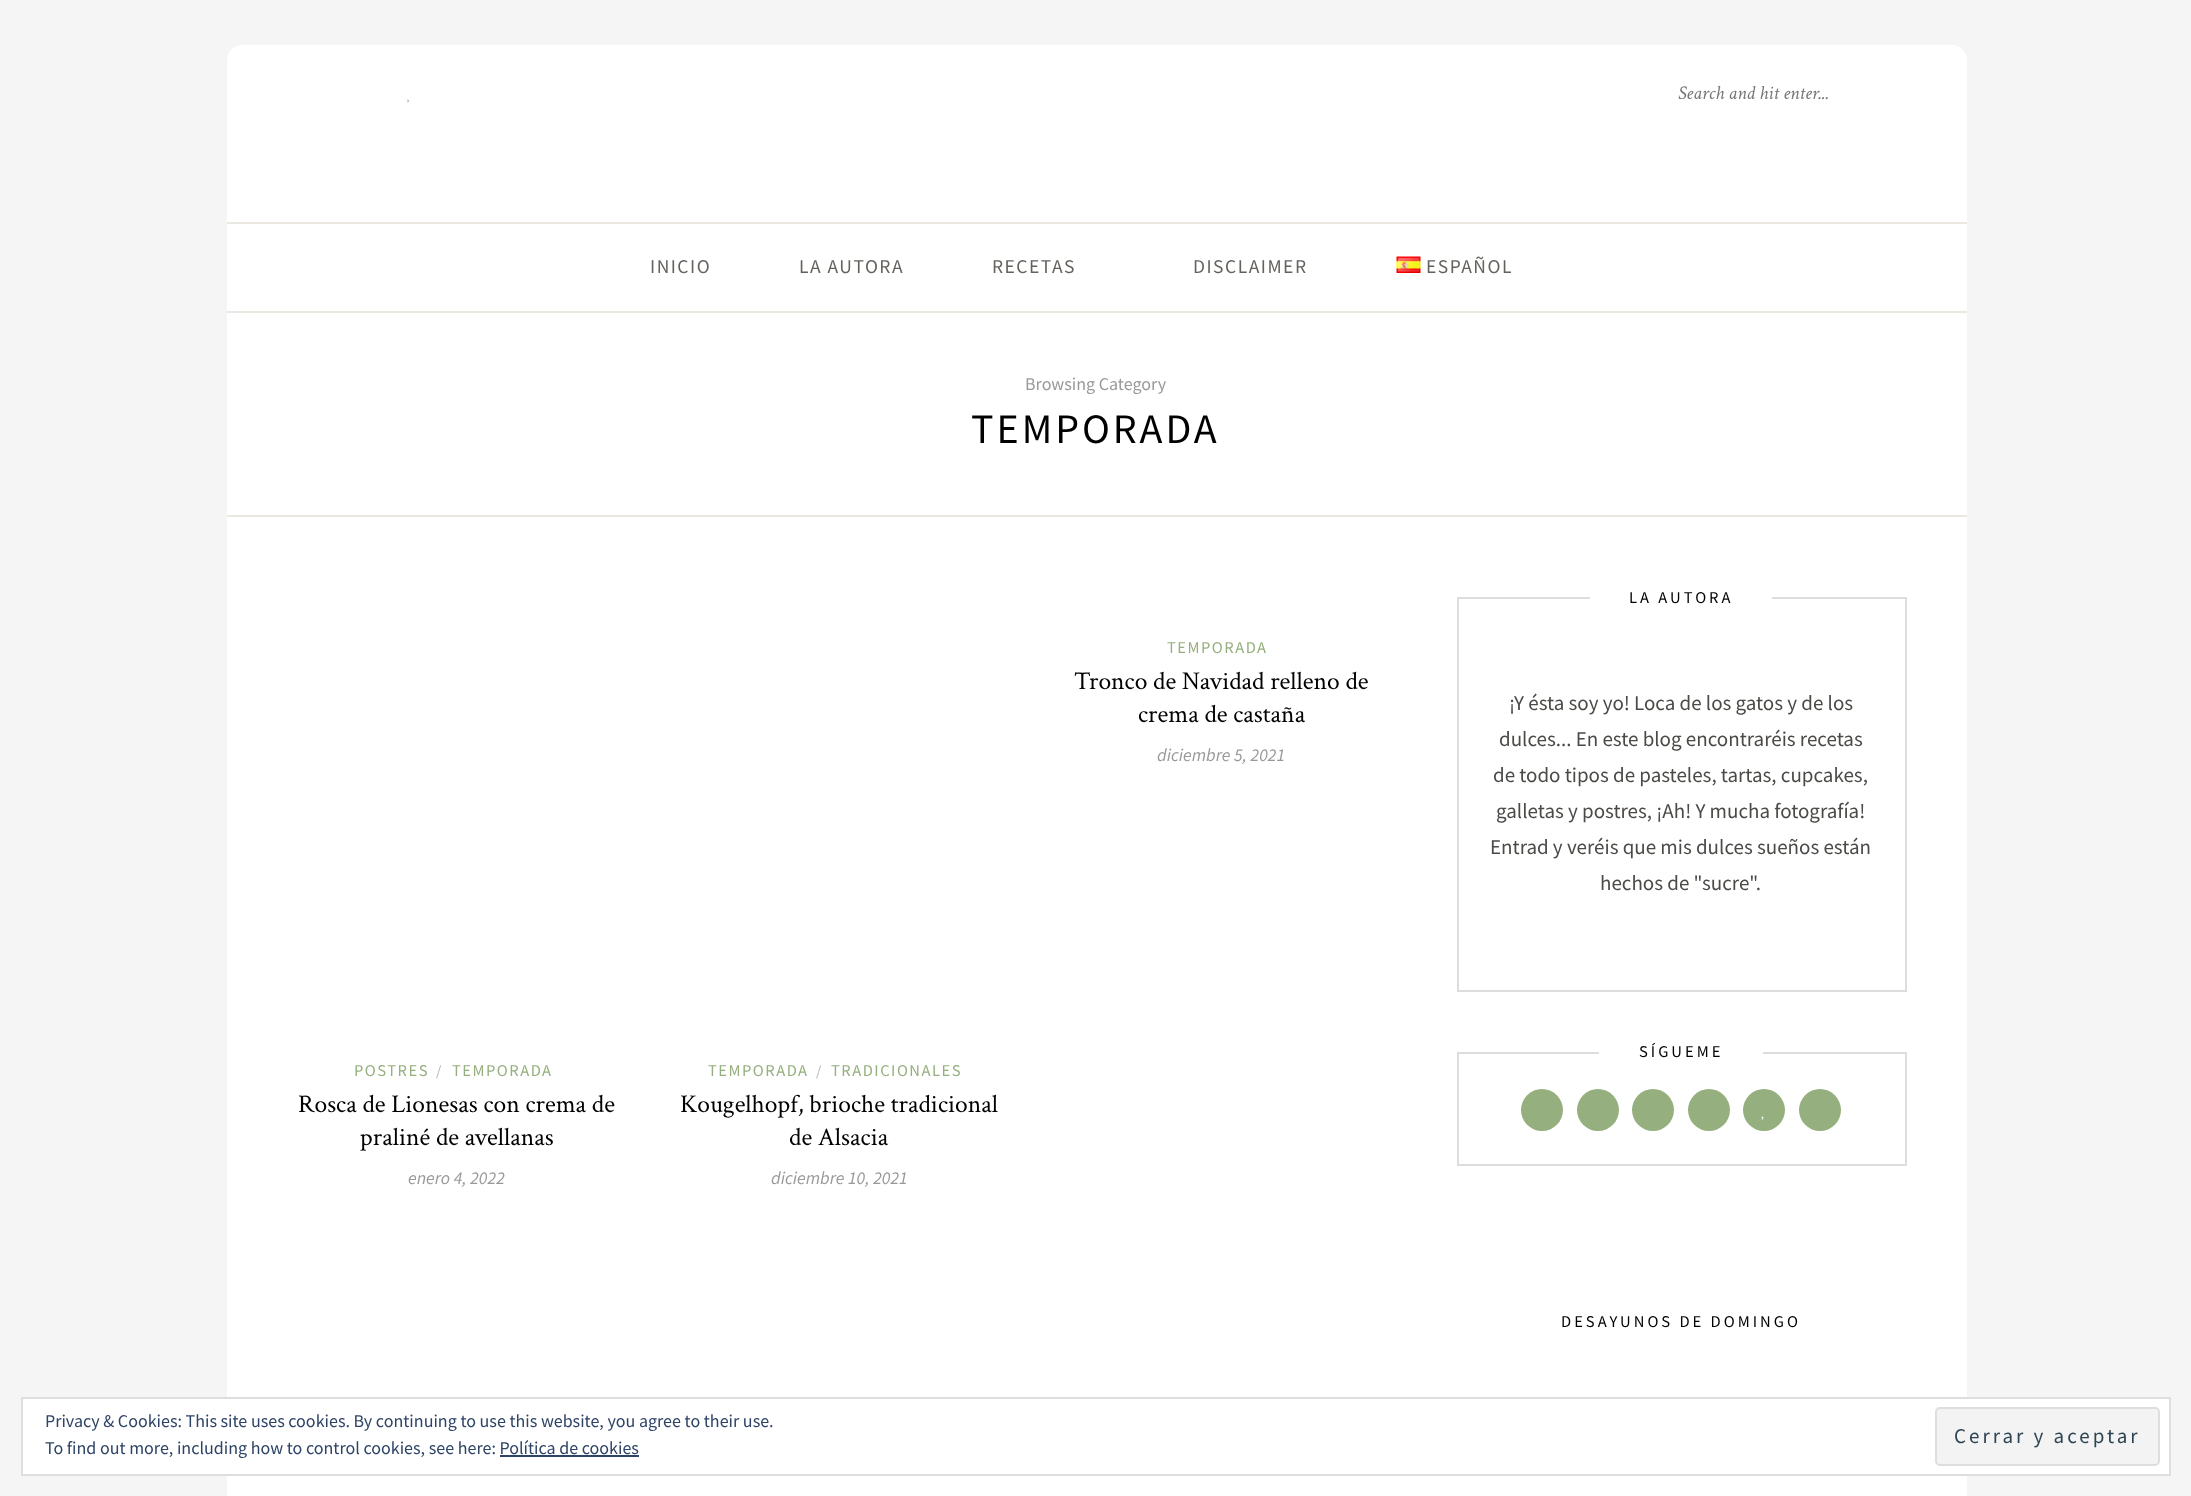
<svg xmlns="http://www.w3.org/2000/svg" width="2191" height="1496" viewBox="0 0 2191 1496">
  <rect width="100%" height="100%" fill="#f5f5f5"/>
  <rect x="227" y="45" width="1740" height="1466" rx="15" fill="#ffffff"/>
  <text x="1678" y="99" font-family="Crimson Text" font-size="19.5" font-style="italic" fill="#757575">Search and hit enter...</text>
  <image x="407" y="99" width="2" height="4" href="img1.png"/>
  <rect x="227" y="222" width="1740" height="2" fill="#eae8e0"/>
  <rect x="227" y="311" width="1740" height="2" fill="#eae8e0"/>
  <text x="650" y="273" font-family="Source Sans Pro" font-size="19.5" letter-spacing="1.5" fill="#65625d">INICIO</text>
  <text x="799" y="273" font-family="Source Sans Pro" font-size="19.5" letter-spacing="1.5" fill="#65625d">LA AUTORA</text>
  <text x="992" y="273" font-family="Source Sans Pro" font-size="19.5" letter-spacing="1.5" fill="#65625d">RECETAS</text>
  <text x="1193" y="273" font-family="Source Sans Pro" font-size="19.5" letter-spacing="1.5" fill="#65625d">DISCLAIMER</text>
  <image x="1396" y="256" width="25" height="17" href="img2.png"/>
  <text x="1426" y="273" font-family="Source Sans Pro" font-size="19.5" letter-spacing="1.5" fill="#65625d">ESPAÑOL</text>
  <rect x="227" y="515" width="1740" height="2" fill="#eae8e0"/>
  <text x="1025" y="390" font-family="Source Sans Pro" font-size="18" fill="#999999">Browsing Category</text>
  <text x="971" y="443" font-family="Source Sans Pro" font-size="42" letter-spacing="3" fill="#000000">TEMPORADA</text>
  <text x="1167" y="653" font-family="Source Sans Pro" font-size="16.5" letter-spacing="1.5" fill="#95af7e">TEMPORADA</text>
  <text x="1074" y="689" font-family="Crimson Text" font-size="25.5" fill="#000000">Tronco de Navidad relleno de</text>
  <text x="1138" y="722" font-family="Crimson Text" font-size="25.5" fill="#000000">crema de castaña</text>
  <text x="1157" y="761" font-family="Source Sans Pro" font-size="18" font-style="italic" fill="#999999">diciembre 5, 2021</text>
  <text x="354" y="1076" font-family="Source Sans Pro" font-size="16.5" letter-spacing="1.5" fill="#95af7e">POSTRES</text>
  <text x="436" y="1076" font-family="Source Sans Pro" font-size="15" fill="#b5b5b5">/</text>
  <text x="452" y="1076" font-family="Source Sans Pro" font-size="16.5" letter-spacing="1.5" fill="#95af7e">TEMPORADA</text>
  <text x="298" y="1112" font-family="Crimson Text" font-size="25.5" fill="#000000">Rosca de Lionesas con crema de</text>
  <text x="360" y="1145" font-family="Crimson Text" font-size="25.5" fill="#000000">praliné de avellanas</text>
  <text x="408" y="1184" font-family="Source Sans Pro" font-size="18" font-style="italic" fill="#999999">enero 4, 2022</text>
  <text x="708" y="1076" font-family="Source Sans Pro" font-size="16.5" letter-spacing="1.5" fill="#95af7e">TEMPORADA</text>
  <text x="816" y="1076" font-family="Source Sans Pro" font-size="15" fill="#b5b5b5">/</text>
  <text x="831" y="1076" font-family="Source Sans Pro" font-size="16.5" letter-spacing="1.5" fill="#95af7e">TRADICIONALES</text>
  <text x="680" y="1112" font-family="Crimson Text" font-size="25.5" fill="#000000">Kougelhopf, brioche tradicional</text>
  <text x="789" y="1145" font-family="Crimson Text" font-size="25.5" fill="#000000">de Alsacia</text>
  <text x="771" y="1184" font-family="Source Sans Pro" font-size="18" font-style="italic" fill="#999999">diciembre 10, 2021</text>
  <rect x="1458" y="598" width="448" height="393" fill="none" stroke="#dddddd" stroke-width="2"/>
  <rect x="1488" y="597" width="387" height="2" fill="#ffffff"/>
  <rect x="1488" y="597" width="102" height="2" fill="#dddddd"/>
  <text x="1629" y="603" font-family="Source Sans Pro" font-size="16.5" letter-spacing="3" fill="#000000">LA AUTORA</text>
  <rect x="1772" y="597" width="103" height="2" fill="#dddddd"/>
  <text x="1509" y="710" font-family="Source Sans Pro" font-size="21" fill="#4c4a47">¡Y ésta soy yo! Loca de los gatos y de los</text>
  <text x="1499" y="746" font-family="Source Sans Pro" font-size="21" fill="#4c4a47">dulces... En este blog encontraréis recetas</text>
  <text x="1493" y="782" font-family="Source Sans Pro" font-size="21" fill="#4c4a47">de todo tipos de pasteles, tartas, cupcakes,</text>
  <text x="1496" y="818" font-family="Source Sans Pro" font-size="21" fill="#4c4a47">galletas y postres, ¡Ah! Y mucha fotografía!</text>
  <text x="1490" y="854" font-family="Source Sans Pro" font-size="21" fill="#4c4a47">Entrad y veréis que mis dulces sueños están</text>
  <text x="1600" y="890" font-family="Source Sans Pro" font-size="21" fill="#4c4a47">hechos de "sucre".</text>
  <rect x="1458" y="1053" width="448" height="112" fill="none" stroke="#dddddd" stroke-width="2"/>
  <rect x="1488" y="1052" width="387" height="2" fill="#ffffff"/>
  <rect x="1488" y="1052" width="111" height="2" fill="#dddddd"/>
  <text x="1639" y="1057" font-family="Source Sans Pro" font-size="16.5" letter-spacing="3" fill="#000000">SÍGUEME</text>
  <rect x="1763" y="1052" width="112" height="2" fill="#dddddd"/>
  <circle cx="1542" cy="1110" r="21" fill="#95af7e"/>
  <circle cx="1598" cy="1110" r="21" fill="#95af7e"/>
  <circle cx="1653" cy="1110" r="21" fill="#95af7e"/>
  <circle cx="1709" cy="1110" r="21" fill="#95af7e"/>
  <circle cx="1764" cy="1110" r="21" fill="#95af7e"/>
  <image x="1761" y="1116" width="3" height="4" href="img3.png"/>
  <circle cx="1820" cy="1110" r="21" fill="#95af7e"/>
  <text x="1561" y="1327" font-family="Source Sans Pro" font-size="16.5" letter-spacing="3" fill="#000000">DESAYUNOS DE DOMINGO</text>
  <rect x="22" y="1398" width="2148" height="77" fill="#ffffff" stroke="#dedede" stroke-width="2"/>
  <text x="45" y="1427" font-family="Source Sans Pro" font-size="18" fill="#2e4467">Privacy &amp; Cookies: This site uses cookies. By continuing to use this website, you agree to their use.</text>
  <text x="45" y="1454" font-family="Source Sans Pro" font-size="18" fill="#2e4467">To find out more, including how to control cookies, see here: Política de cookies</text>
  <rect x="1936" y="1408" width="223" height="57" rx="4" fill="#f3f3f3" stroke="#dedede" stroke-width="2"/>
  <text x="1954" y="1443" font-family="Source Sans Pro" font-size="21" letter-spacing="3" fill="#2e4453">Cerrar y aceptar</text>
  <rect x="500" y="1455" width="139" height="2" fill="#2e4467"/>
</svg>
